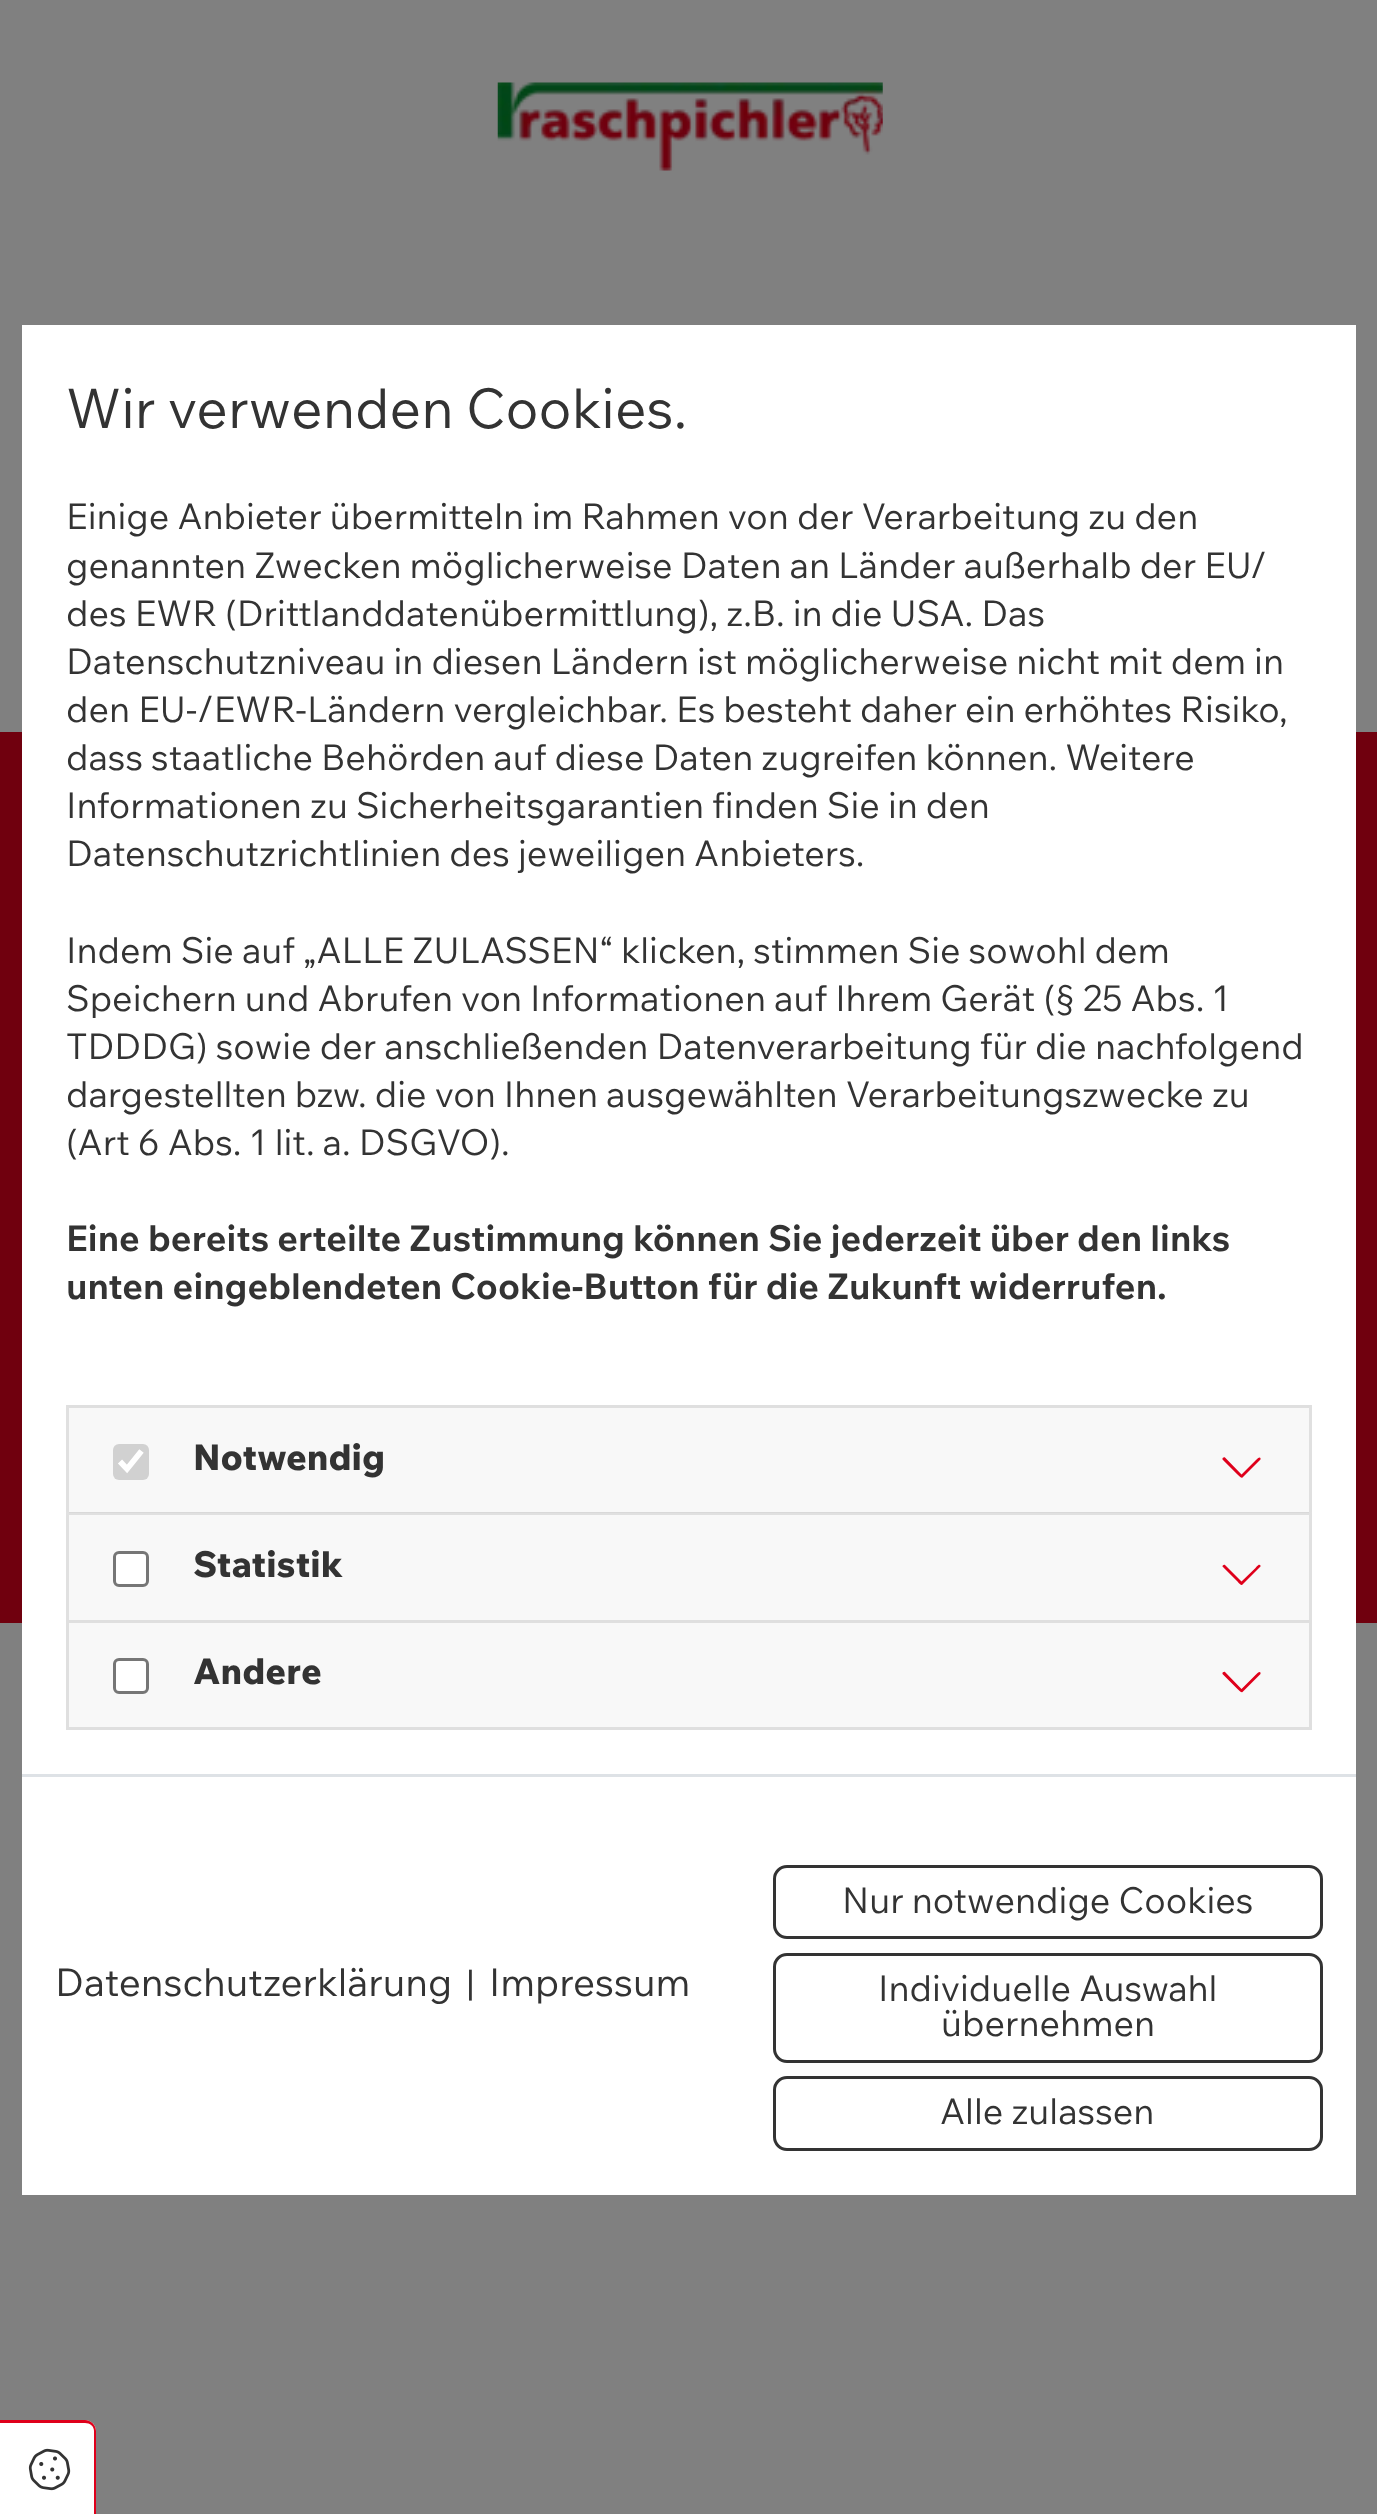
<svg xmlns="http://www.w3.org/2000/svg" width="1377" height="2514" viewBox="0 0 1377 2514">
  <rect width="100%" height="100%" fill="#808080"/>
  <image x="497" y="82" width="386" height="89" href="img1.png"/>
  <rect x="0" y="732" width="1377" height="891" fill="#70000e"/>
  <rect x="22" y="325" width="1334" height="1870" fill="#ffffff"/>
  <text x="66" y="428" font-family="Wix Madefor Text" font-size="55" fill="#333333">Wir verwenden Cookies.</text>
  <text x="66" y="529" font-family="Wix Madefor Text" font-size="35.75" fill="#333333">Einige Anbieter übermitteln im Rahmen von der Verarbeitung zu den</text>
  <text x="66" y="578" font-family="Wix Madefor Text" font-size="35.75" fill="#333333">genannten Zwecken möglicherweise Daten an Länder außerhalb der EU/</text>
  <text x="66" y="626" font-family="Wix Madefor Text" font-size="35.75" fill="#333333">des EWR (Drittlanddatenübermittlung), z.B. in die USA. Das</text>
  <text x="66" y="674" font-family="Wix Madefor Text" font-size="35.75" fill="#333333">Datenschutzniveau in diesen Ländern ist möglicherweise nicht mit dem in</text>
  <text x="66" y="722" font-family="Wix Madefor Text" font-size="35.75" fill="#333333">den EU-/EWR-Ländern vergleichbar. Es besteht daher ein erhöhtes Risiko,</text>
  <text x="66" y="770" font-family="Wix Madefor Text" font-size="35.75" fill="#333333">dass staatliche Behörden auf diese Daten zugreifen können. Weitere</text>
  <text x="66" y="818" font-family="Wix Madefor Text" font-size="35.75" fill="#333333">Informationen zu Sicherheitsgarantien finden Sie in den</text>
  <text x="66" y="866" font-family="Wix Madefor Text" font-size="35.75" fill="#333333">Datenschutzrichtlinien des jeweiligen Anbieters.</text>
  <text x="66" y="963" font-family="Wix Madefor Text" font-size="35.75" fill="#333333">Indem Sie auf „ALLE ZULASSEN“ klicken, stimmen Sie sowohl dem</text>
  <text x="66" y="1011" font-family="Wix Madefor Text" font-size="35.75" fill="#333333">Speichern und Abrufen von Informationen auf Ihrem Gerät (§ 25 Abs. 1</text>
  <text x="66" y="1059" font-family="Wix Madefor Text" font-size="35.75" fill="#333333">TDDDG) sowie der anschließenden Datenverarbeitung für die nachfolgend</text>
  <text x="66" y="1107" font-family="Wix Madefor Text" font-size="35.75" fill="#333333">dargestellten bzw. die von Ihnen ausgewählten Verarbeitungszwecke zu</text>
  <text x="66" y="1155" font-family="Wix Madefor Text" font-size="35.75" fill="#333333">(Art 6 Abs. 1 lit. a. DSGVO).</text>
  <text x="66" y="1251" font-family="Wix Madefor Text" font-size="35.75" font-weight="bold" fill="#333333">Eine bereits erteilte Zustimmung können Sie jederzeit über den links</text>
  <text x="66" y="1299" font-family="Wix Madefor Text" font-size="35.75" font-weight="bold" fill="#333333">unten eingeblendeten Cookie-Button für die Zukunft widerrufen.</text>
  <path d="M66 1405H1312L1309 1408H69Z" fill="#dfdfdf"/>
  <path d="M1312 1405V1512H1309V1408Z" fill="#000000" fill-opacity="0.12"/>
  <path d="M66 1512V1405L69 1408V1512Z" fill="#000000" fill-opacity="0.12"/>
  <rect x="69" y="1408" width="1240" height="105" fill="#f8f8f8"/>
  <rect x="113" y="1444" width="36" height="36" rx="6" fill="#d1d1d1"/>
  <path d="M120 1461.5L127 1469L141.5 1451" fill="none" stroke="#ffffff" stroke-width="5.7"/>
  <text x="193" y="1470" font-family="Wix Madefor Text" font-size="35.75" font-weight="800" fill="#333333">Notwendig</text>
  <path d="M1242.5 1477.5C1241 1479 1238.5 1475 1237.5 1474.5L1222.5 1459.5C1222 1458 1224 1457 1225 1457.5L1241.5 1474.5L1255.5 1460.5C1256 1460 1259 1456 1260.5 1458V1459.5Z" fill="#df001b"/>
  <path d="M66 1512H1312L1309 1515H69Z" fill="#000000" fill-opacity="0.12"/>
  <path d="M1312 1512V1620H1309V1515Z" fill="#000000" fill-opacity="0.12"/>
  <path d="M66 1620V1512L69 1515V1620Z" fill="#000000" fill-opacity="0.12"/>
  <rect x="69" y="1515" width="1240" height="105" fill="#f8f8f8"/>
  <rect x="114.5" y="1552.5" width="33" height="33" rx="4.5" fill="#ffffff" stroke="#767676" stroke-width="3"/>
  <text x="193" y="1577" font-family="Wix Madefor Text" font-size="35.75" font-weight="800" fill="#333333">Statistik</text>
  <path d="M1242.5 1584.5C1241 1586.5 1238.5 1582.5 1237.5 1581.5L1222.5 1566.5C1222 1565.5 1224 1564 1225 1565L1241.5 1581.5L1255.5 1568C1256 1567.5 1259 1563 1260.5 1565.5V1566.5Z" fill="#df001b"/>
  <rect x="67.5" y="1621.5" width="1243" height="107" fill="none" stroke="#dfdfdf" stroke-width="3"/>
  <rect x="69" y="1623" width="1240" height="104" fill="#f8f8f8"/>
  <rect x="114.5" y="1659.5" width="33" height="33" rx="4.5" fill="#ffffff" stroke="#767676" stroke-width="3"/>
  <text x="193" y="1684" font-family="Wix Madefor Text" font-size="35.75" font-weight="800" fill="#333333">Andere</text>
  <path d="M1242.5 1692C1241 1693.5 1238.5 1689.5 1237.5 1689L1222.5 1674C1222 1672.5 1224 1671.5 1225 1672L1241.5 1689L1255.5 1675C1256 1674.5 1259 1670.5 1260.5 1672.5V1674Z" fill="#df001b"/>
  <rect x="22" y="1774" width="1334" height="3" fill="#dee2e6"/>
  <text x="55" y="1996" font-family="Wix Madefor Text" font-size="38.5" fill="#333333">Datenschutzerklärung</text>
  <text x="466" y="1996" font-family="Wix Madefor Text" font-size="35.75" fill="#333333">|</text>
  <text x="489" y="1996" font-family="Wix Madefor Text" font-size="38.5" fill="#333333">Impressum</text>
  <rect x="774.5" y="1866.5" width="547" height="71" rx="12.5" fill="none" stroke="#333333" stroke-width="3"/>
  <text x="842" y="1913" font-family="Wix Madefor Text" font-size="35.75" fill="#333333">Nur notwendige Cookies</text>
  <rect x="774.5" y="1954.5" width="547" height="107" rx="12.5" fill="none" stroke="#333333" stroke-width="3"/>
  <text x="878" y="2001" font-family="Wix Madefor Text" font-size="35.75" fill="#333333">Individuelle Auswahl</text>
  <text x="941" y="2036" font-family="Wix Madefor Text" font-size="35.75" fill="#333333">übernehmen</text>
  <rect x="774.5" y="2077.5" width="547" height="72" rx="12.5" fill="none" stroke="#333333" stroke-width="3"/>
  <text x="940" y="2124" font-family="Wix Madefor Text" font-size="35.75" fill="#333333">Alle zulassen</text>
  <path d="M0 2420H85C91 2420 96 2425 96 2431V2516H0Z" fill="#ffffff"/>
  <path d="M0 2420H85C91 2420 96 2425 96 2431V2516H0ZM0 2423H85C90 2423 94 2426 94 2431V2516H0Z" fill="#df001b" fill-rule="evenodd"/>
  <image x="28" y="2448" width="43" height="43" href="img2.png"/>
</svg>
